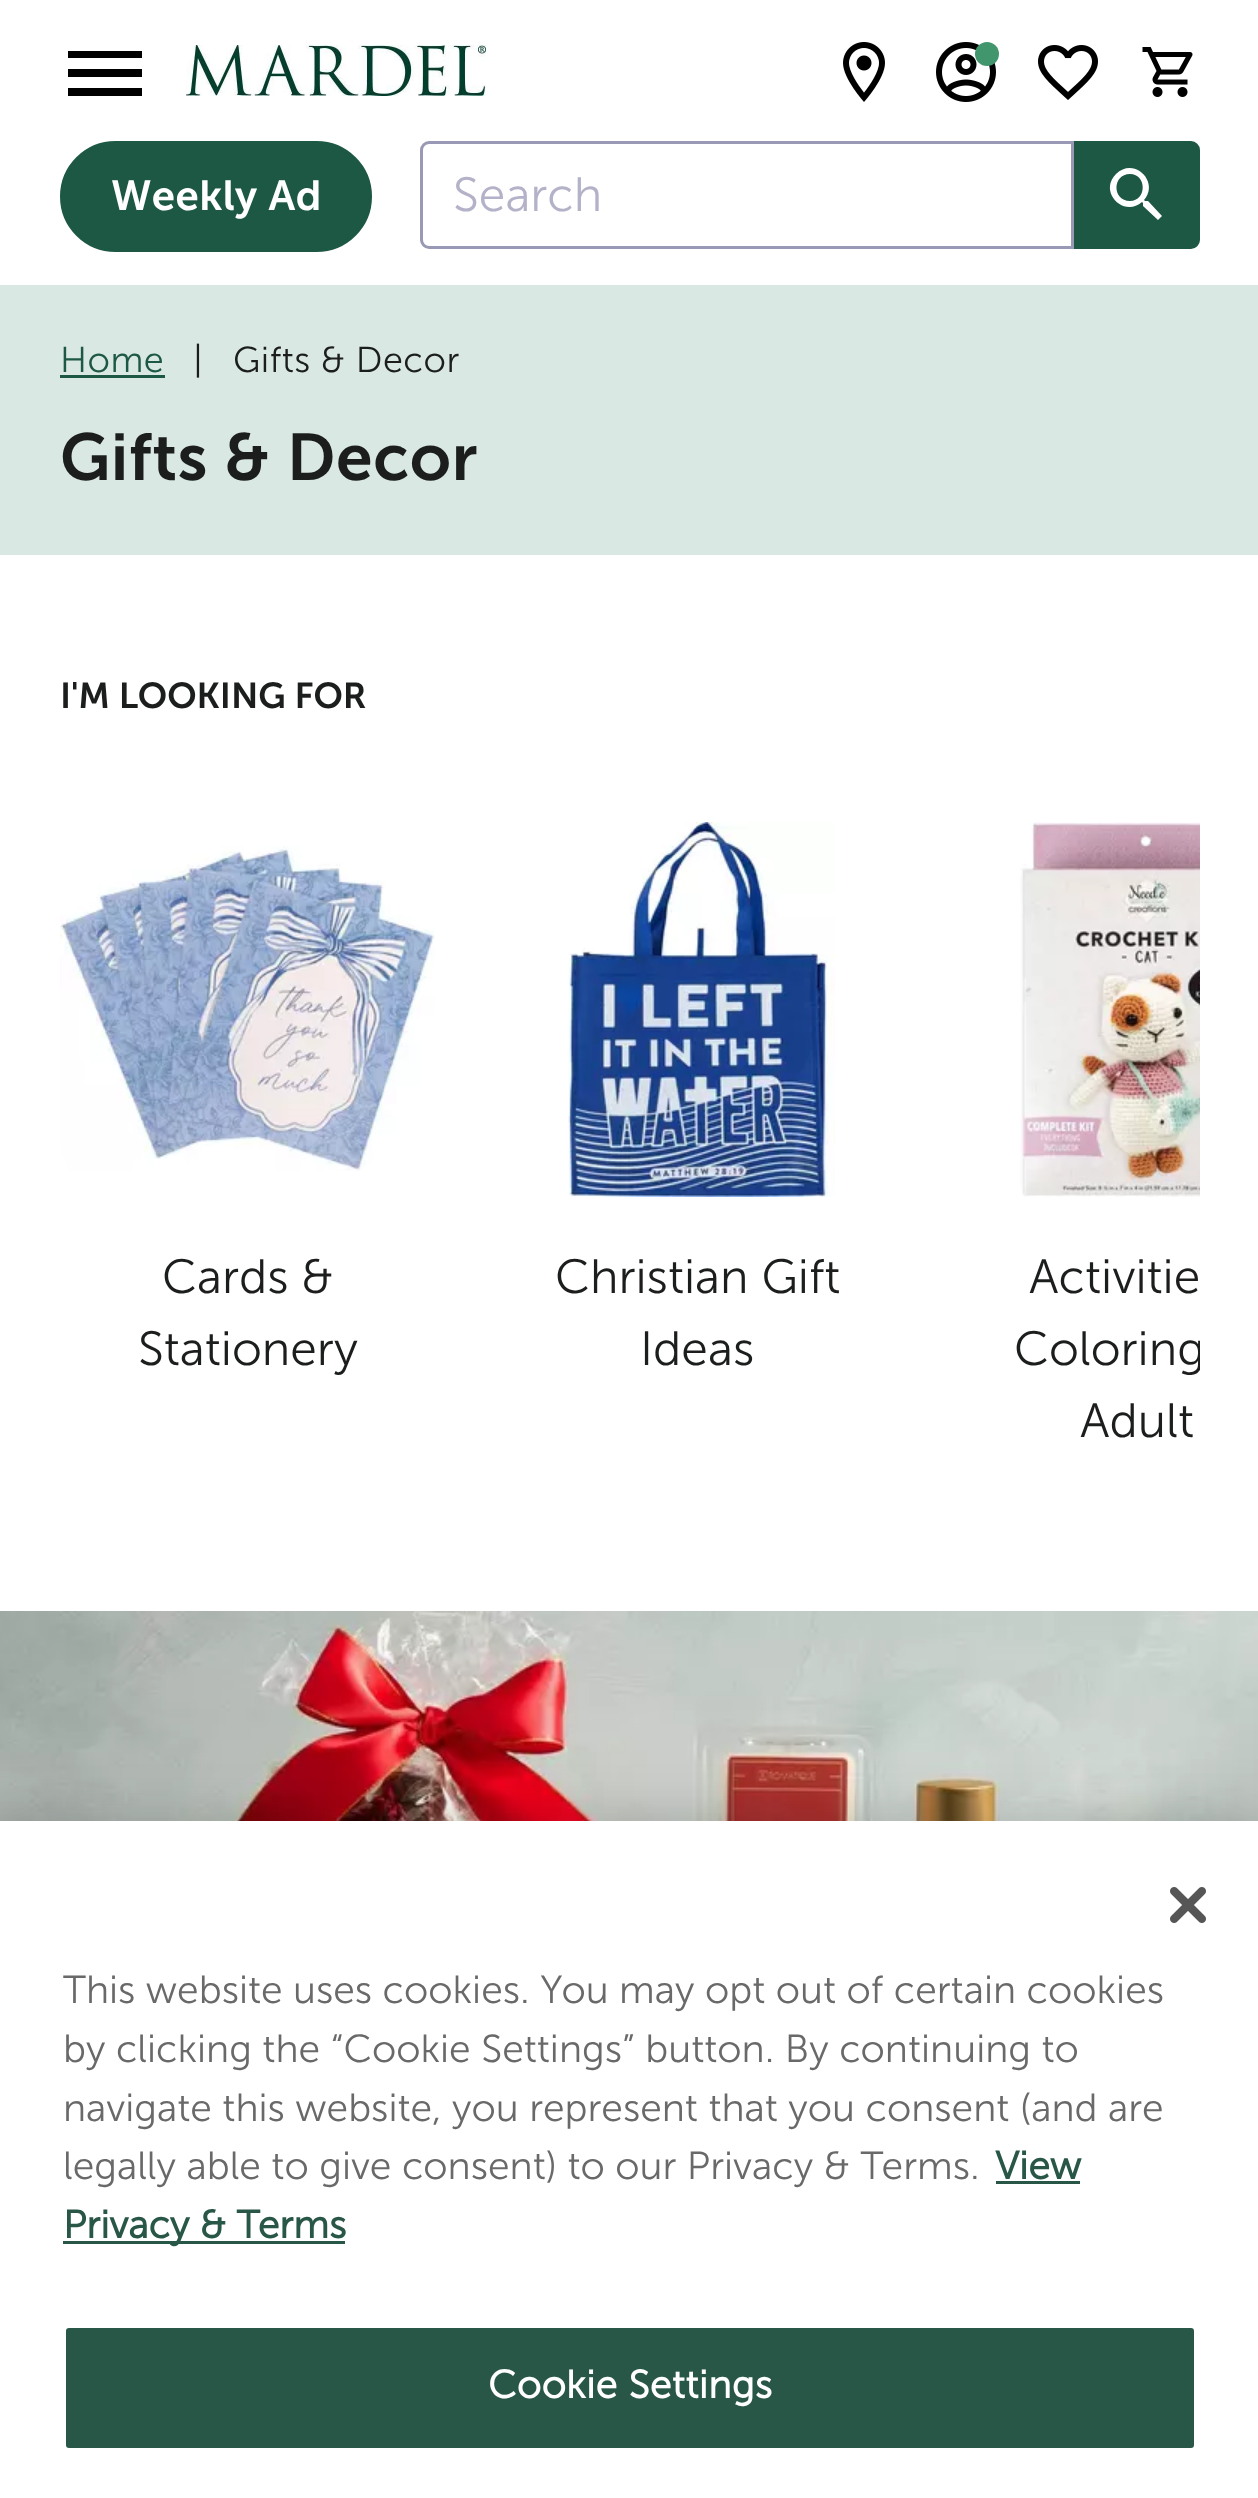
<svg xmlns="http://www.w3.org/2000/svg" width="1258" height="2498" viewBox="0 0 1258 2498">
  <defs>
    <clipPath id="clip1"><rect x="60" y="822" width="1140" height="696"/></clipPath>
    <filter id="blur1" x="-50%" y="-200%" width="200%" height="500%"><feGaussianBlur stdDeviation="27"/></filter>
  </defs>
  <rect width="100%" height="100%" fill="#ffffff"/>
  <path d="M68 88V96H142V88ZM68 69V77H142V69ZM68 51V58H142V51Z" fill="#000000"/>
  <image x="186" y="45" width="300" height="51" href="img1.png"/>
  <image x="843" y="42" width="42" height="60" href="img2.png"/>
  <image x="936" y="42" width="60" height="60" href="img3.png"/>
  <circle cx="987" cy="54" r="12" fill="#42966d"/>
  <image x="1038" y="45" width="60" height="55" href="img4.png"/>
  <image x="1142" y="47" width="51" height="50" href="img5.png"/>
  <rect x="61.5" y="142.5" width="309" height="108" rx="54" fill="#1d5844" stroke="#1d5844" stroke-width="3"/>
  <text x="111" y="210" font-family="'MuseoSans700'" font-size="42" font-weight="600" letter-spacing="0.5" fill="#ffffff">Weekly Ad</text>
  <path d="M429 142.5H1072.5V247.5H429C425 247.5 421.5 244 421.5 240V150C421.5 146 425 142.5 429 142.5Z" fill="none" stroke="#9998b5" stroke-width="3"/>
  <text x="453" y="211" font-family="'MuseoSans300'" font-size="48" font-weight="300" fill="#b3b2c8">Search</text>
  <path d="M1075.5 142.5H1191C1195 142.5 1198.5 146 1198.5 150V240C1198.5 244 1195 247.5 1191 247.5H1075.5Z" fill="#1d5844" stroke="#1d5844" stroke-width="3"/>
  <path d="M1148 201H1145L1144 200C1160 182 1134 156 1116 174C1098 192 1124 218 1142 202L1143 203V206L1158 220L1162 216ZM1130 201C1112 201 1112 174 1130 174C1147 174 1147 201 1130 201Z" fill="#ffffff"/>
  <rect x="0" y="285" width="1258" height="270" fill="#dae8e3"/>
  <text x="60" y="372" font-family="'MuseoSans300'" font-size="36" font-weight="300" letter-spacing="0.5" fill="#1d5844">Home</text>
  <rect x="60" y="375" width="105" height="3" fill="#1d5844"/>
  <text x="193" y="372" font-family="'MuseoSans300'" font-size="36" font-weight="300" letter-spacing="0.5" fill="#1c1e1e">|</text>
  <text x="233" y="372" font-family="'MuseoSans300'" font-size="36" font-weight="300" letter-spacing="0.5" fill="#1c1e1e">Gifts &amp; Decor</text>
  <text x="60" y="480" font-family="'MuseoSans700'" font-size="66" font-weight="600" letter-spacing="0.5" fill="#1c1e1e">Gifts &amp; Decor</text>
  <text x="60" y="708" font-family="'MuseoSans700'" font-size="36" font-weight="600" fill="#1c1e1e">I'M LOOKING FOR</text>
  <image x="60" y="846" width="375" height="325" href="img6.png"/>
  <text x="162" y="1293" font-family="'MuseoSans300'" font-size="48" font-weight="300" fill="#1c1e1e">Cards &amp;</text>
  <text x="138" y="1365" font-family="'MuseoSans300'" font-size="48" font-weight="300" fill="#1c1e1e">Stationery</text>
  <image x="568" y="822" width="267" height="375" href="img7.png"/>
  <text x="555" y="1293" font-family="'MuseoSans300'" font-size="48" font-weight="300" fill="#1c1e1e">Christian Gift</text>
  <text x="640" y="1365" font-family="'MuseoSans300'" font-size="48" font-weight="300" fill="#1c1e1e">Ideas</text>
  <image x="1020" y="822" width="180" height="375" href="img8.png"/>
  <text x="1029" y="1293" font-family="'MuseoSans300'" font-size="48" font-weight="300" fill="#1c1e1e">Activitie</text>
  <g clip-path="url(#clip1)">
    <text x="1014" y="1365" font-family="'MuseoSans300'" font-size="48" font-weight="300" fill="#1c1e1e">Coloring</text>
  </g>
  <text x="1080" y="1437" font-family="'MuseoSans300'" font-size="48" font-weight="300" fill="#1c1e1e">Adult</text>
  <image x="0" y="1611" width="1258" height="210" href="img9.png"/>
  <rect x="0" y="1821" width="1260" height="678" fill="#000000" fill-opacity="0.2" filter="url(#blur1)"/>
  <rect x="0" y="1821" width="1258" height="677" fill="#ffffff"/>
  <image x="1170" y="1887" width="36" height="36" href="img10.png"/>
  <text x="63" y="2003" font-family="'MuseoSans300'" font-size="39" font-weight="300" fill="#696969">This website uses cookies. You may opt out of certain cookies</text>
  <text x="63" y="2062" font-family="'MuseoSans300'" font-size="39" font-weight="300" fill="#696969">by clicking the “Cookie Settings” button. By continuing to</text>
  <text x="63" y="2121" font-family="'MuseoSans300'" font-size="39" font-weight="300" fill="#696969">navigate this website, you represent that you consent (and are</text>
  <text x="63" y="2179" font-family="'MuseoSans300'" font-size="39" font-weight="300" fill="#696969">legally able to give consent) to our Privacy &amp; Terms.</text>
  <text x="995" y="2179" font-family="'MuseoSans300'" font-size="39" font-weight="bold" fill="#295747">View</text>
  <rect x="996" y="2181" width="84" height="3" fill="#295747"/>
  <rect x="63" y="2241" width="282" height="3" fill="#295747"/>
  <text x="63" y="2238" font-family="'MuseoSans300'" font-size="39" font-weight="bold" fill="#295747">Privacy &amp; Terms</text>
  <rect x="64.5" y="2326.5" width="1131" height="123" rx="4.5" fill="#295747" stroke="#ffffff" stroke-width="3"/>
  <text x="488" y="2398" font-family="'MuseoSans300'" font-size="39" font-weight="bold" letter-spacing="0.4" fill="#ffffff">Cookie Settings</text>
</svg>
